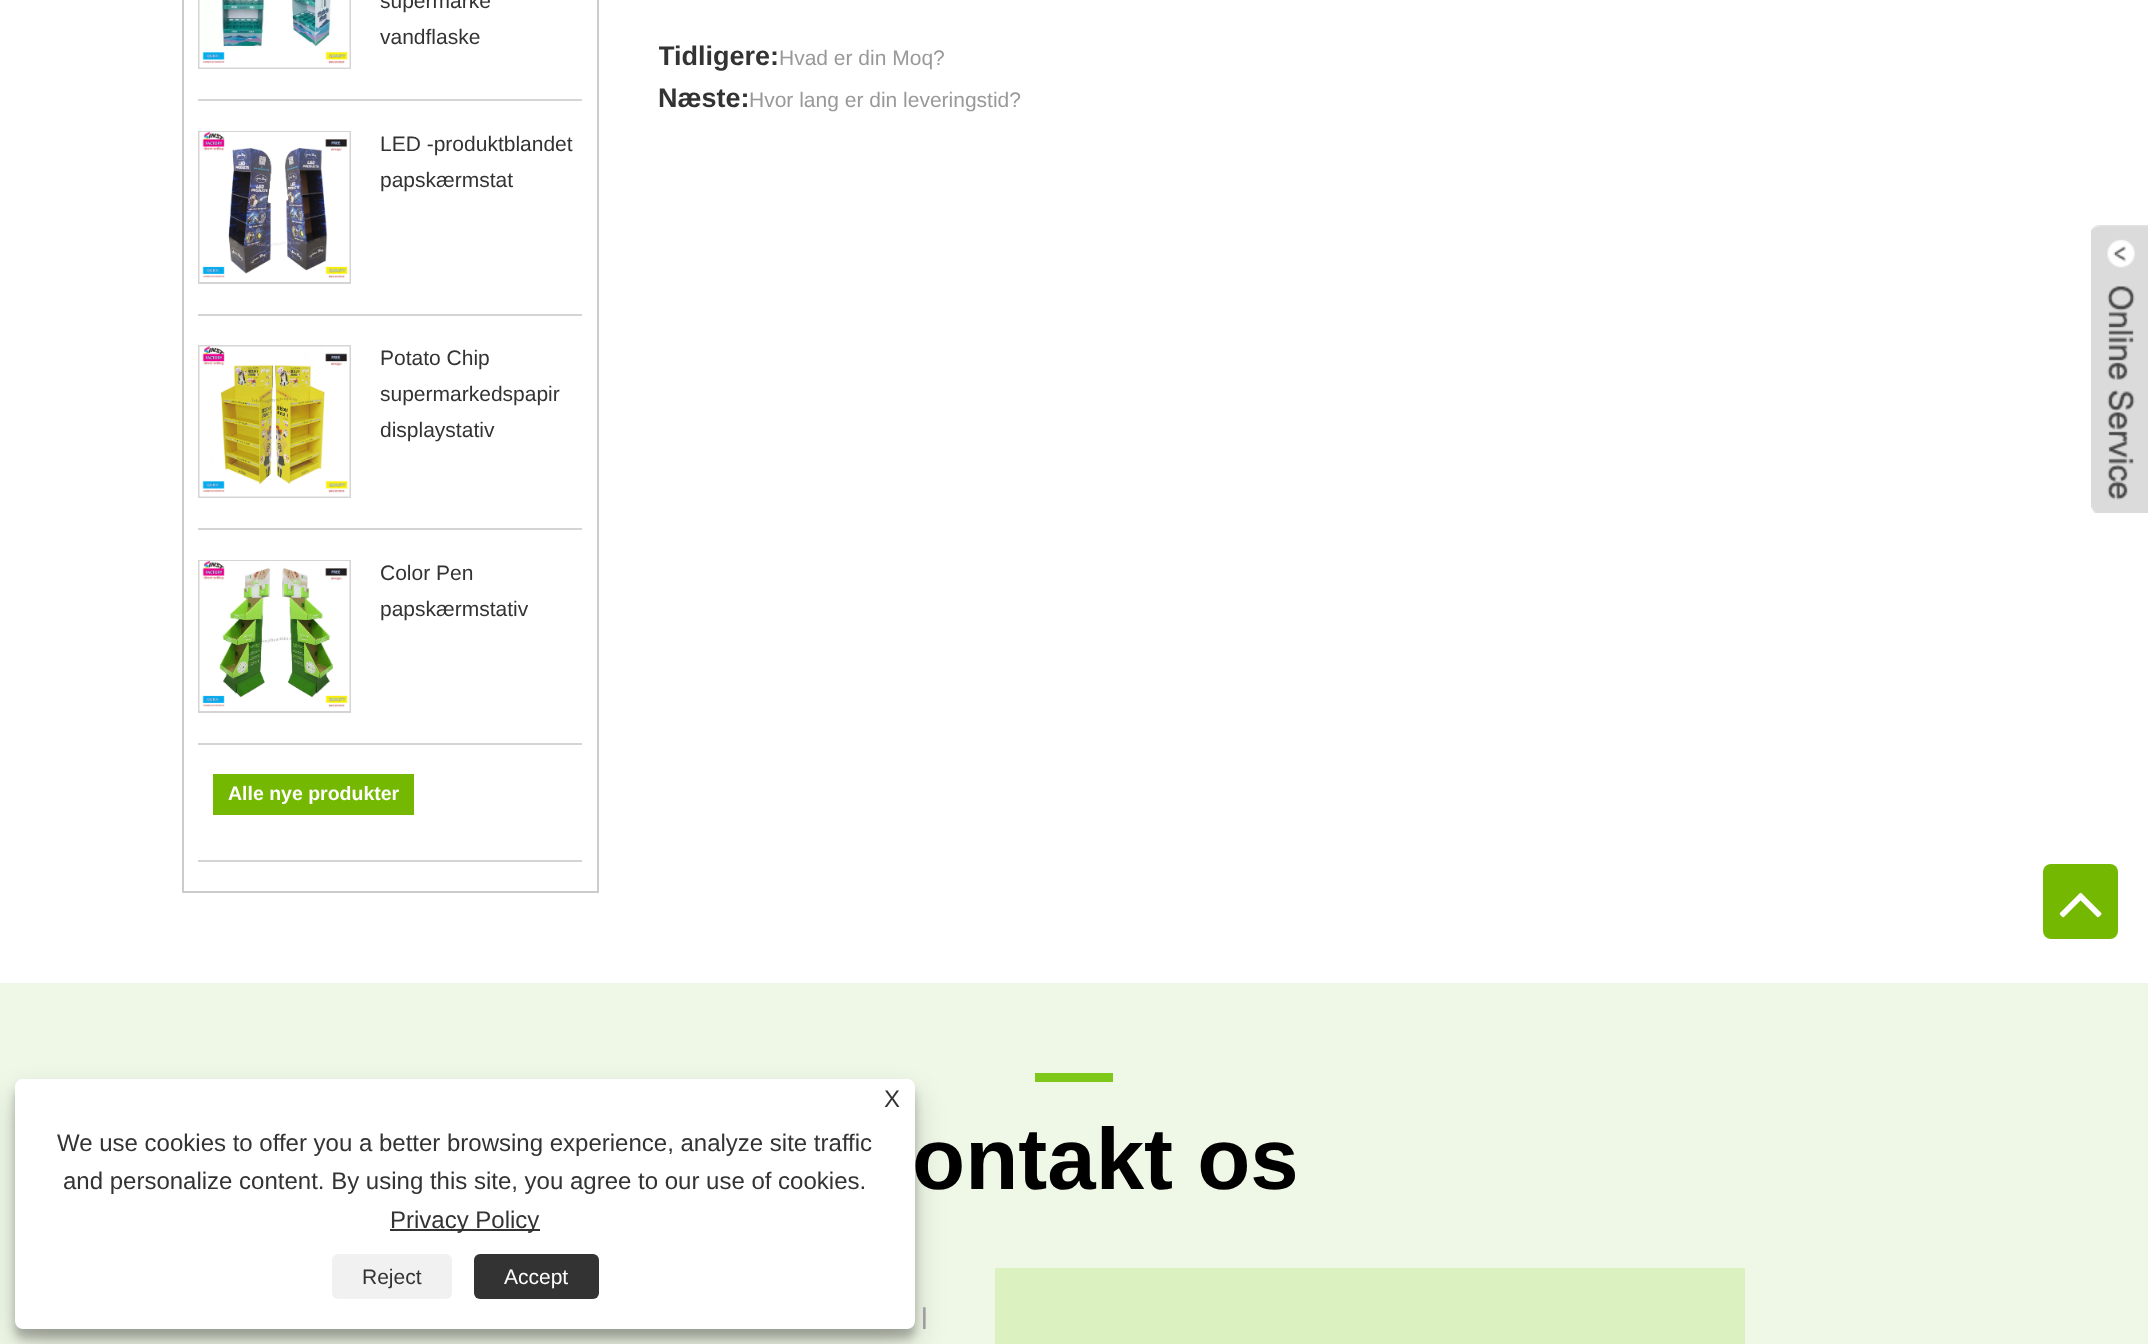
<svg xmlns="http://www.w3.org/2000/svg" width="2148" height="1344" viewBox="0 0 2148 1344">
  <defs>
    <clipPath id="clip1"><rect x="659" y="36" width="1308" height="42"/></clipPath>
    <filter id="blur1" x="-50%" y="-200%" width="200%" height="500%"><feGaussianBlur stdDeviation="4.5"/></filter>
    <filter id="blur2" x="-50%" y="-200%" width="200%" height="500%"><feGaussianBlur stdDeviation="15"/></filter>
  </defs>
  <rect width="100%" height="100%" fill="#ffffff"/>
  <rect x="183" y="-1" width="415" height="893" fill="none" stroke="#cccccc" stroke-width="2"/>
  <rect x="198" y="99" width="384" height="2" fill="#d6d4d4"/>
  <rect x="199" y="-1" width="151" height="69" fill="none" stroke="#d6d4d4" stroke-width="2"/>
  <image x="199" y="0" width="151" height="68" href="img1.png"/>
  <text x="380" y="8" font-family="Liberation Sans" font-size="21" fill="#333333">supermarke</text>
  <text x="380" y="44" font-family="Liberation Sans" font-size="21" fill="#333333">vandflaske</text>
  <rect x="198" y="314" width="384" height="2" fill="#d6d4d4"/>
  <rect x="199" y="132" width="151" height="151" fill="none" stroke="#d6d4d4" stroke-width="2"/>
  <image x="199" y="132" width="151" height="150" href="img2.png"/>
  <text x="380" y="151" font-family="Liberation Sans" font-size="21" fill="#333333">LED -produktblandet</text>
  <text x="380" y="187" font-family="Liberation Sans" font-size="21" fill="#333333">papskærmstat</text>
  <rect x="198" y="528" width="384" height="2" fill="#d6d4d4"/>
  <rect x="199" y="346" width="151" height="151" fill="none" stroke="#d6d4d4" stroke-width="2"/>
  <image x="199" y="346" width="151" height="151" href="img3.png"/>
  <text x="380" y="365" font-family="Liberation Sans" font-size="21" fill="#333333">Potato Chip</text>
  <text x="380" y="401" font-family="Liberation Sans" font-size="21" fill="#333333">supermarkedspapir</text>
  <text x="380" y="437" font-family="Liberation Sans" font-size="21" fill="#333333">displaystativ</text>
  <rect x="198" y="743" width="384" height="2" fill="#d6d4d4"/>
  <rect x="199" y="561" width="151" height="151" fill="none" stroke="#d6d4d4" stroke-width="2"/>
  <image x="199" y="561" width="151" height="150" href="img4.png"/>
  <text x="380" y="580" font-family="Liberation Sans" font-size="21" fill="#333333">Color Pen</text>
  <text x="380" y="616" font-family="Liberation Sans" font-size="21" fill="#333333">papskærmstativ</text>
  <rect x="198" y="860" width="384" height="2" fill="#d6d4d4"/>
  <rect x="213" y="774" width="201" height="41" fill="#74b801"/>
  <text x="228" y="800" font-family="Liberation Sans" font-size="19.5" font-weight="bold" fill="#ffffff">Alle nye produkter</text>
  <g clip-path="url(#clip1)">
    <text x="658" y="65" font-family="Liberation Sans" font-size="27" font-weight="bold" fill="#333333">Tidligere:</text>
  </g>
  <text x="779" y="65" font-family="Liberation Sans" font-size="21" fill="#999999">Hvad er din Moq?</text>
  <text x="658" y="107" font-family="Liberation Sans" font-size="27" font-weight="bold" fill="#333333">Næste:</text>
  <text x="749" y="107" font-family="Liberation Sans" font-size="21" fill="#999999">Hvor lang er din leveringstid?</text>
  <image x="2091" y="225" width="57" height="288" href="img5.png"/>
  <rect x="2043" y="864" width="75" height="75" rx="8" fill="#74b801"/>
  <image x="2059" y="892" width="43" height="26" href="img6.png"/>
  <rect x="0" y="983" width="2148" height="361" fill="#eff8e7"/>
  <rect x="15" y="1088" width="900" height="250" rx="8" fill="#000000" fill-opacity="0.23" filter="url(#blur1)"/>
  <rect x="15" y="1094" width="900" height="250" rx="8" fill="#000000" fill-opacity="0.19" filter="url(#blur2)"/>
  <rect x="15" y="1079" width="900" height="250" rx="8" fill="#ffffff"/>
  <text x="884" y="1107" font-family="Liberation Sans" font-size="24" fill="#333333">X</text>
  <text x="57" y="1151" font-family="Liberation Sans" font-size="24" fill="#333333">We use cookies to offer you a better browsing experience, analyze site traffic</text>
  <text x="63" y="1189" font-family="Liberation Sans" font-size="24" fill="#333333">and personalize content. By using this site, you agree to our use of cookies.</text>
  <rect x="390" y="1229" width="150" height="2" fill="#333333"/>
  <text x="390" y="1228" font-family="Liberation Sans" font-size="24" fill="#333333">Privacy Policy</text>
  <rect x="332" y="1254" width="120" height="45" rx="6" fill="#f1f1f1"/>
  <text x="362" y="1284" font-family="Liberation Sans" font-size="21" fill="#333333">Reject</text>
  <rect x="474" y="1254" width="125" height="45" rx="6" fill="#333333"/>
  <text x="504" y="1284" font-family="Liberation Sans" font-size="21" fill="#ffffff">Accept</text>
  <rect x="1035" y="1073" width="78" height="9" fill="#7dc819"/>
  <text x="912" y="1189" font-family="Liberation Sans" font-size="87" font-weight="bold" fill="#000000">ontakt os</text>
  <text x="921" y="1329" font-family="Liberation Sans" font-size="30" fill="#9f9f9f">l</text>
  <rect x="995" y="1268" width="750" height="76" fill="#dbf1c0"/>
</svg>
